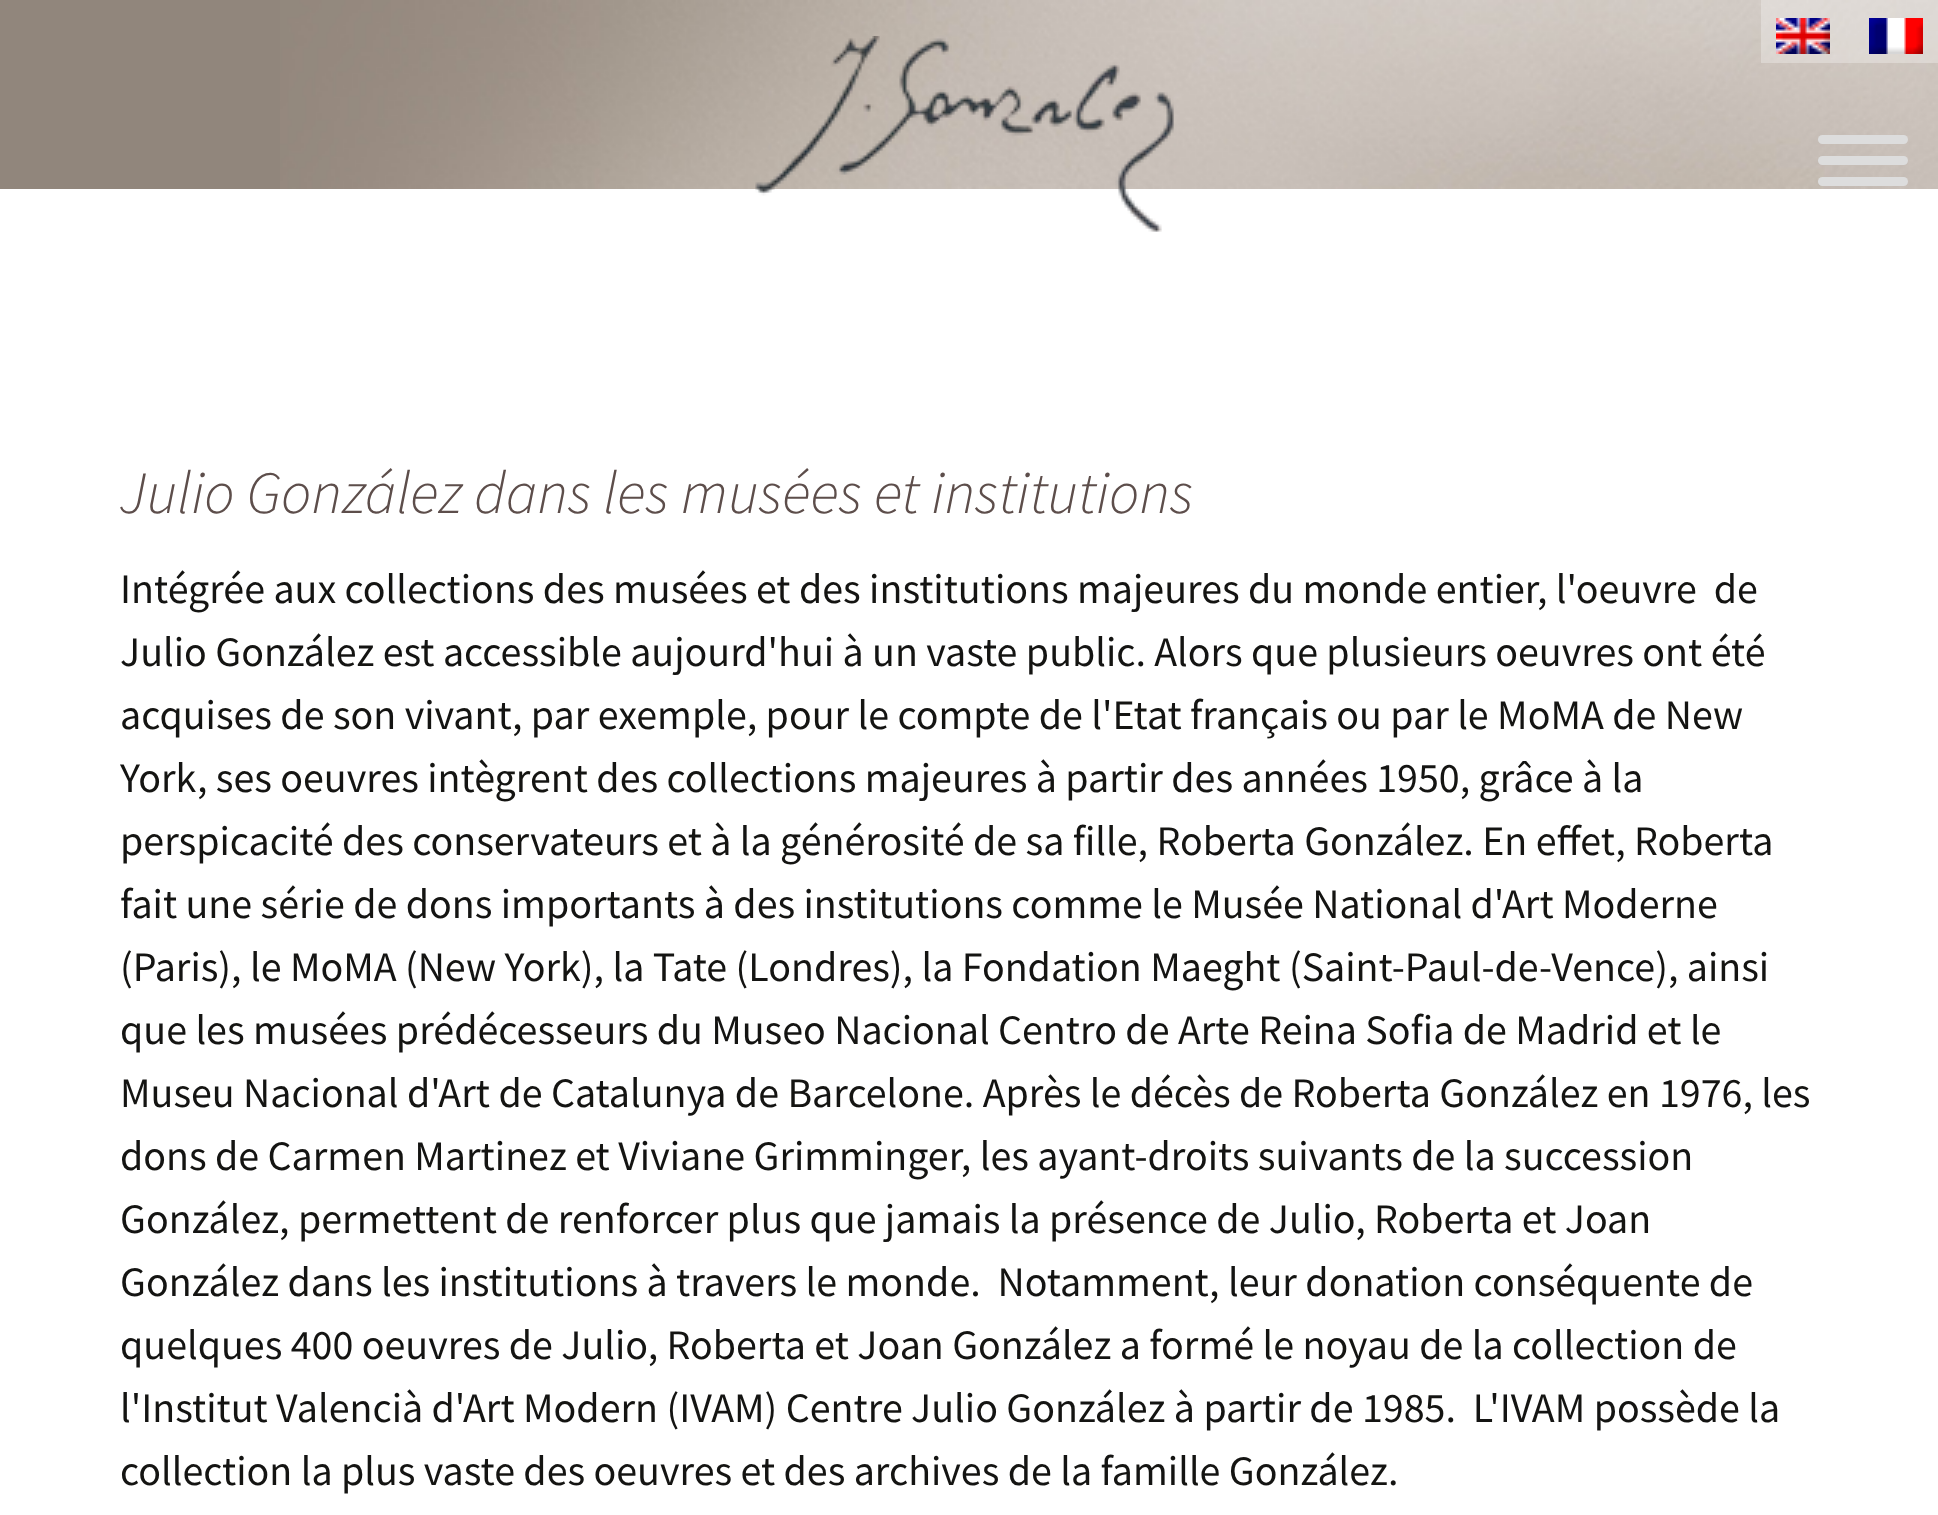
<svg xmlns="http://www.w3.org/2000/svg" width="1938" height="1515" viewBox="0 0 1938 1515">
  <rect width="100%" height="100%" fill="#ffffff"/>
  <rect x="0" y="0" width="280" height="189" fill="#91867c"/>
  <image x="280" y="0" width="1658" height="189" href="img1.png"/>
  <image x="755" y="36" width="419" height="196" href="img2.png"/>
  <rect x="1818" y="135" width="90" height="9" rx="4.5" fill="#dddddd"/>
  <rect x="1818" y="156" width="90" height="9" rx="4.5" fill="#dddddd"/>
  <rect x="1818" y="177" width="90" height="9" rx="4.5" fill="#dddddd"/>
  <rect x="1761" y="0" width="177" height="63" fill="#ffffff" fill-opacity="0.3"/>
  <image x="1776" y="18" width="54" height="36" href="img3.png"/>
  <image x="1869" y="18" width="54" height="36" href="img4.png"/>
  <text x="120" y="513" font-family="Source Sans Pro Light" font-size="60" font-weight="300" font-style="italic" fill="#5d4e4b">Julio González dans les musées et institutions</text>
  <text x="120" y="603" font-family="Source Sans Pro" font-size="42" fill="#141412" xml:space="preserve">Intégrée aux collections des musées et des institutions majeures du monde entier, l'oeuvre  de</text>
  <text x="120" y="666" font-family="Source Sans Pro" font-size="42" fill="#141412">Julio González est accessible aujourd'hui à un vaste public. Alors que plusieurs oeuvres ont été</text>
  <text x="120" y="729" font-family="Source Sans Pro" font-size="42" fill="#141412">acquises de son vivant, par exemple, pour le compte de l'Etat français ou par le MoMA de New</text>
  <text x="120" y="792" font-family="Source Sans Pro" font-size="42" fill="#141412">York, ses oeuvres intègrent des collections majeures à partir des années 1950, grâce à la</text>
  <text x="120" y="855" font-family="Source Sans Pro" font-size="42" fill="#141412">perspicacité des conservateurs et à la générosité de sa fille, Roberta González. En effet, Roberta</text>
  <text x="120" y="918" font-family="Source Sans Pro" font-size="42" fill="#141412">fait une série de dons importants à des institutions comme le Musée National d'Art Moderne</text>
  <text x="120" y="981" font-family="Source Sans Pro" font-size="42" fill="#141412">(Paris), le MoMA (New York), la Tate (Londres), la Fondation Maeght (Saint-Paul-de-Vence), ainsi</text>
  <text x="120" y="1044" font-family="Source Sans Pro" font-size="42" fill="#141412">que les musées prédécesseurs du Museo Nacional Centro de Arte Reina Sofia de Madrid et le</text>
  <text x="120" y="1107" font-family="Source Sans Pro" font-size="42" fill="#141412">Museu Nacional d'Art de Catalunya de Barcelone. Après le décès de Roberta González en 1976, les</text>
  <text x="120" y="1170" font-family="Source Sans Pro" font-size="42" fill="#141412">dons de Carmen Martinez et Viviane Grimminger, les ayant-droits suivants de la succession</text>
  <text x="120" y="1233" font-family="Source Sans Pro" font-size="42" fill="#141412">González, permettent de renforcer plus que jamais la présence de Julio, Roberta et Joan</text>
  <text x="120" y="1296" font-family="Source Sans Pro" font-size="42" fill="#141412" xml:space="preserve">González dans les institutions à travers le monde.  Notamment, leur donation conséquente de</text>
  <text x="120" y="1359" font-family="Source Sans Pro" font-size="42" fill="#141412">quelques 400 oeuvres de Julio, Roberta et Joan González a formé le noyau de la collection de</text>
  <text x="120" y="1422" font-family="Source Sans Pro" font-size="42" fill="#141412" xml:space="preserve">l'Institut Valencià d'Art Modern (IVAM) Centre Julio González à partir de 1985.  L'IVAM possède la</text>
  <text x="120" y="1485" font-family="Source Sans Pro" font-size="42" fill="#141412">collection la plus vaste des oeuvres et des archives de la famille González.</text>
</svg>
